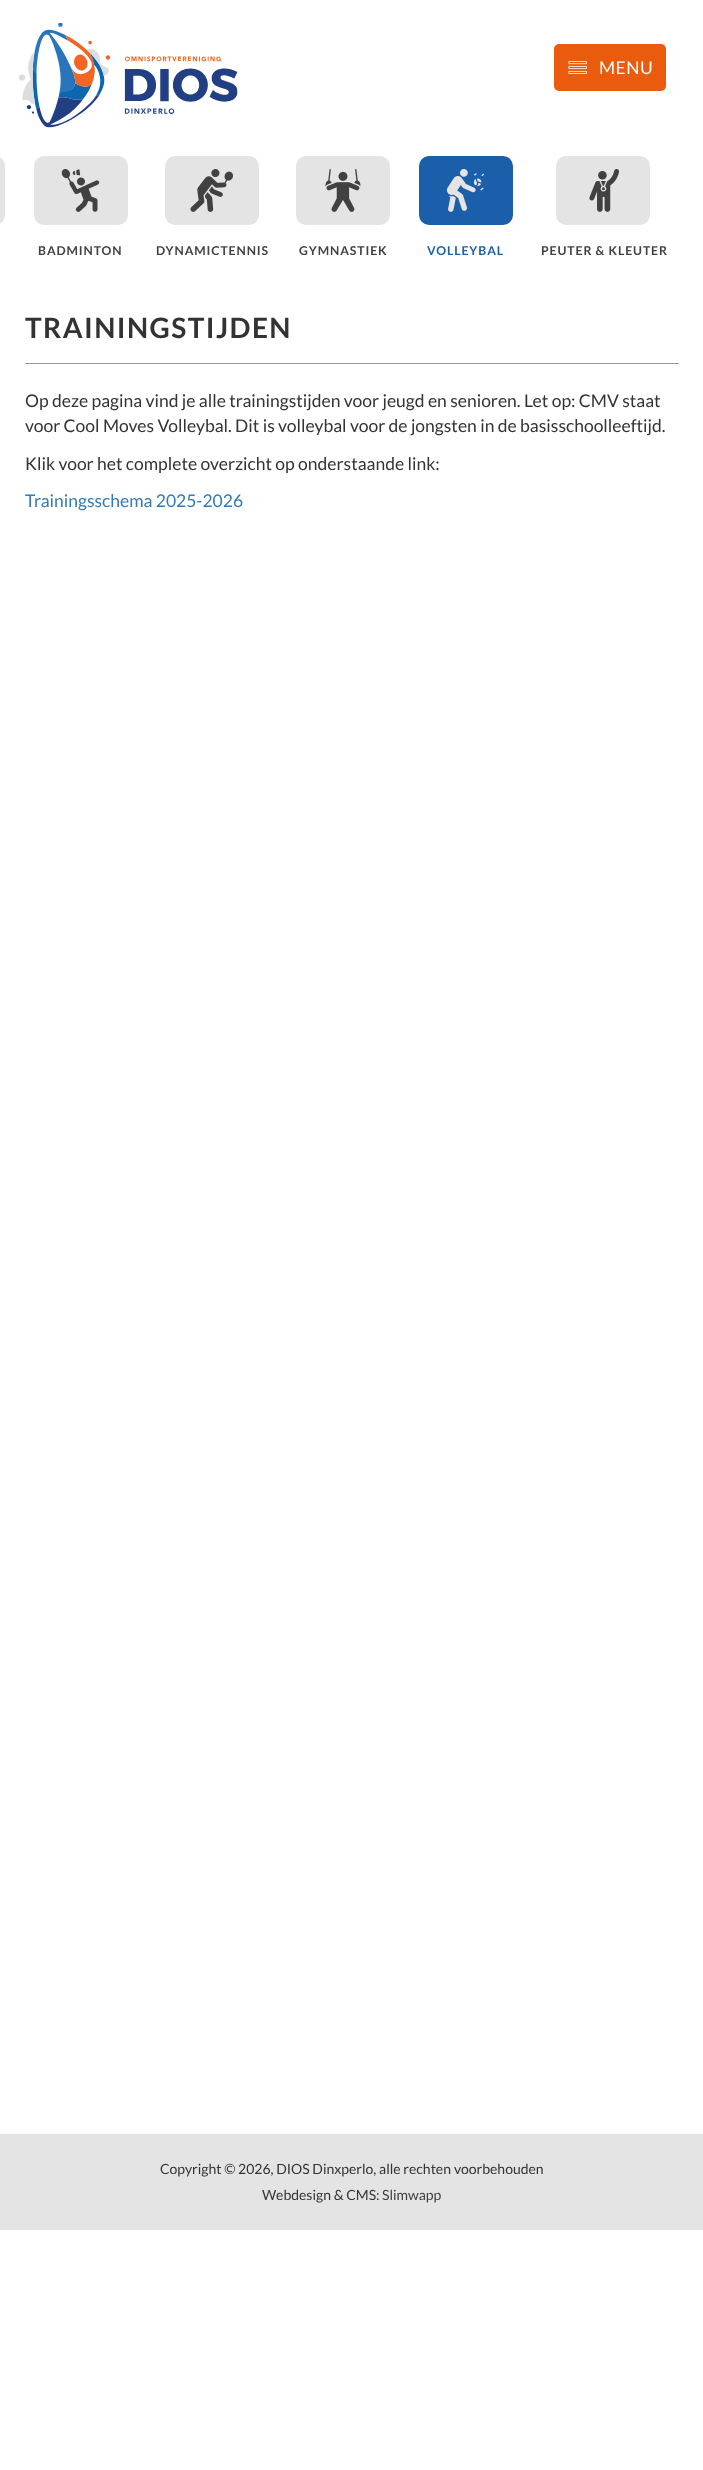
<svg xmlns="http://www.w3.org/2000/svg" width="703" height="2470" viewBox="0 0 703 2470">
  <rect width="100%" height="100%" fill="#ffffff"/>
  <image x="19" y="23" width="219" height="105" href="img1.png"/>
  <rect x="554" y="44" width="112" height="47" rx="5" fill="#ea5b0d"/>
  <image x="568" y="61" width="19" height="13" href="img2.png"/>
  <text x="599" y="74" font-family="Lato" font-size="17.5" letter-spacing="0.5" fill="#ffffff">MENU</text>
  <path d="M-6 156H-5C.5 156 5 160.5 5 166V215C5 220.5 .5 225-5 225H-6Z" fill="#e5e4e5"/>
  <rect x="34" y="156" width="94" height="69" rx="10" fill="#e5e4e5"/>
  <image x="61" y="169" width="39" height="43" href="img3.png"/>
  <text x="38" y="255" font-family="Lato" font-size="12.25" font-weight="bold" letter-spacing="0.9" fill="#414141">BADMINTON</text>
  <rect x="165" y="156" width="94" height="69" rx="10" fill="#e5e4e5"/>
  <image x="190" y="169" width="43" height="43" href="img4.png"/>
  <text x="156" y="255" font-family="Lato" font-size="12.25" font-weight="bold" letter-spacing="0.9" fill="#414141">DYNAMICTENNIS</text>
  <rect x="296" y="156" width="94" height="69" rx="10" fill="#e5e4e5"/>
  <image x="325" y="169" width="36" height="43" href="img5.png"/>
  <text x="299" y="255" font-family="Lato" font-size="12.25" font-weight="bold" letter-spacing="0.9" fill="#414141">GYMNASTIEK</text>
  <rect x="419" y="156" width="94" height="69" rx="10" fill="#1b5faa"/>
  <image x="446" y="169" width="38" height="43" href="img6.png"/>
  <text x="427" y="255" font-family="Lato" font-size="12.25" font-weight="bold" letter-spacing="0.9" fill="#1b5faa">VOLLEYBAL</text>
  <rect x="556" y="156" width="94" height="69" rx="10" fill="#e5e4e5"/>
  <image x="589" y="169" width="30" height="43" href="img7.png"/>
  <text x="541" y="255" font-family="Lato" font-size="12.25" font-weight="bold" letter-spacing="0.9" fill="#414141">PEUTER &amp; KLEUTER</text>
  <rect x="25" y="363" width="654" height="1" fill="#999999"/>
  <text x="25" y="338" font-family="Lato" font-size="28" font-weight="bold" letter-spacing="1.4" fill="#333333">TRAININGSTIJDEN</text>
  <text x="25" y="407" font-family="Lato" font-size="17.5" fill="#333333">Op deze pagina vind je alle trainingstijden voor jeugd en senioren. Let op: CMV staat</text>
  <text x="25" y="432" font-family="Lato" font-size="17.5" fill="#333333">voor Cool Moves Volleybal. Dit is volleybal voor de jongsten in de basisschoolleeftijd.</text>
  <text x="25" y="470" font-family="Lato" font-size="17.5" fill="#333333">Klik voor het complete overzicht op onderstaande link:</text>
  <text x="25" y="507" font-family="Lato" font-size="17.5" fill="#337ab7">Trainingsschema 2025-2026</text>
  <rect x="0" y="2134" width="703" height="96" fill="#e5e4e5"/>
  <text x="160" y="2174" font-family="Lato" font-size="14" fill="#333333">Copyright © 2026, DIOS Dinxperlo, alle rechten</text>
  <text x="454" y="2174" font-family="Lato" font-size="14" fill="#333333">voorbehouden</text>
  <text x="262" y="2200" font-family="Lato" font-size="14" fill="#333333">Webdesign &amp; CMS:</text>
  <text x="382" y="2200" font-family="Lato" font-size="14" fill="#414141">Slimwapp</text>
</svg>
